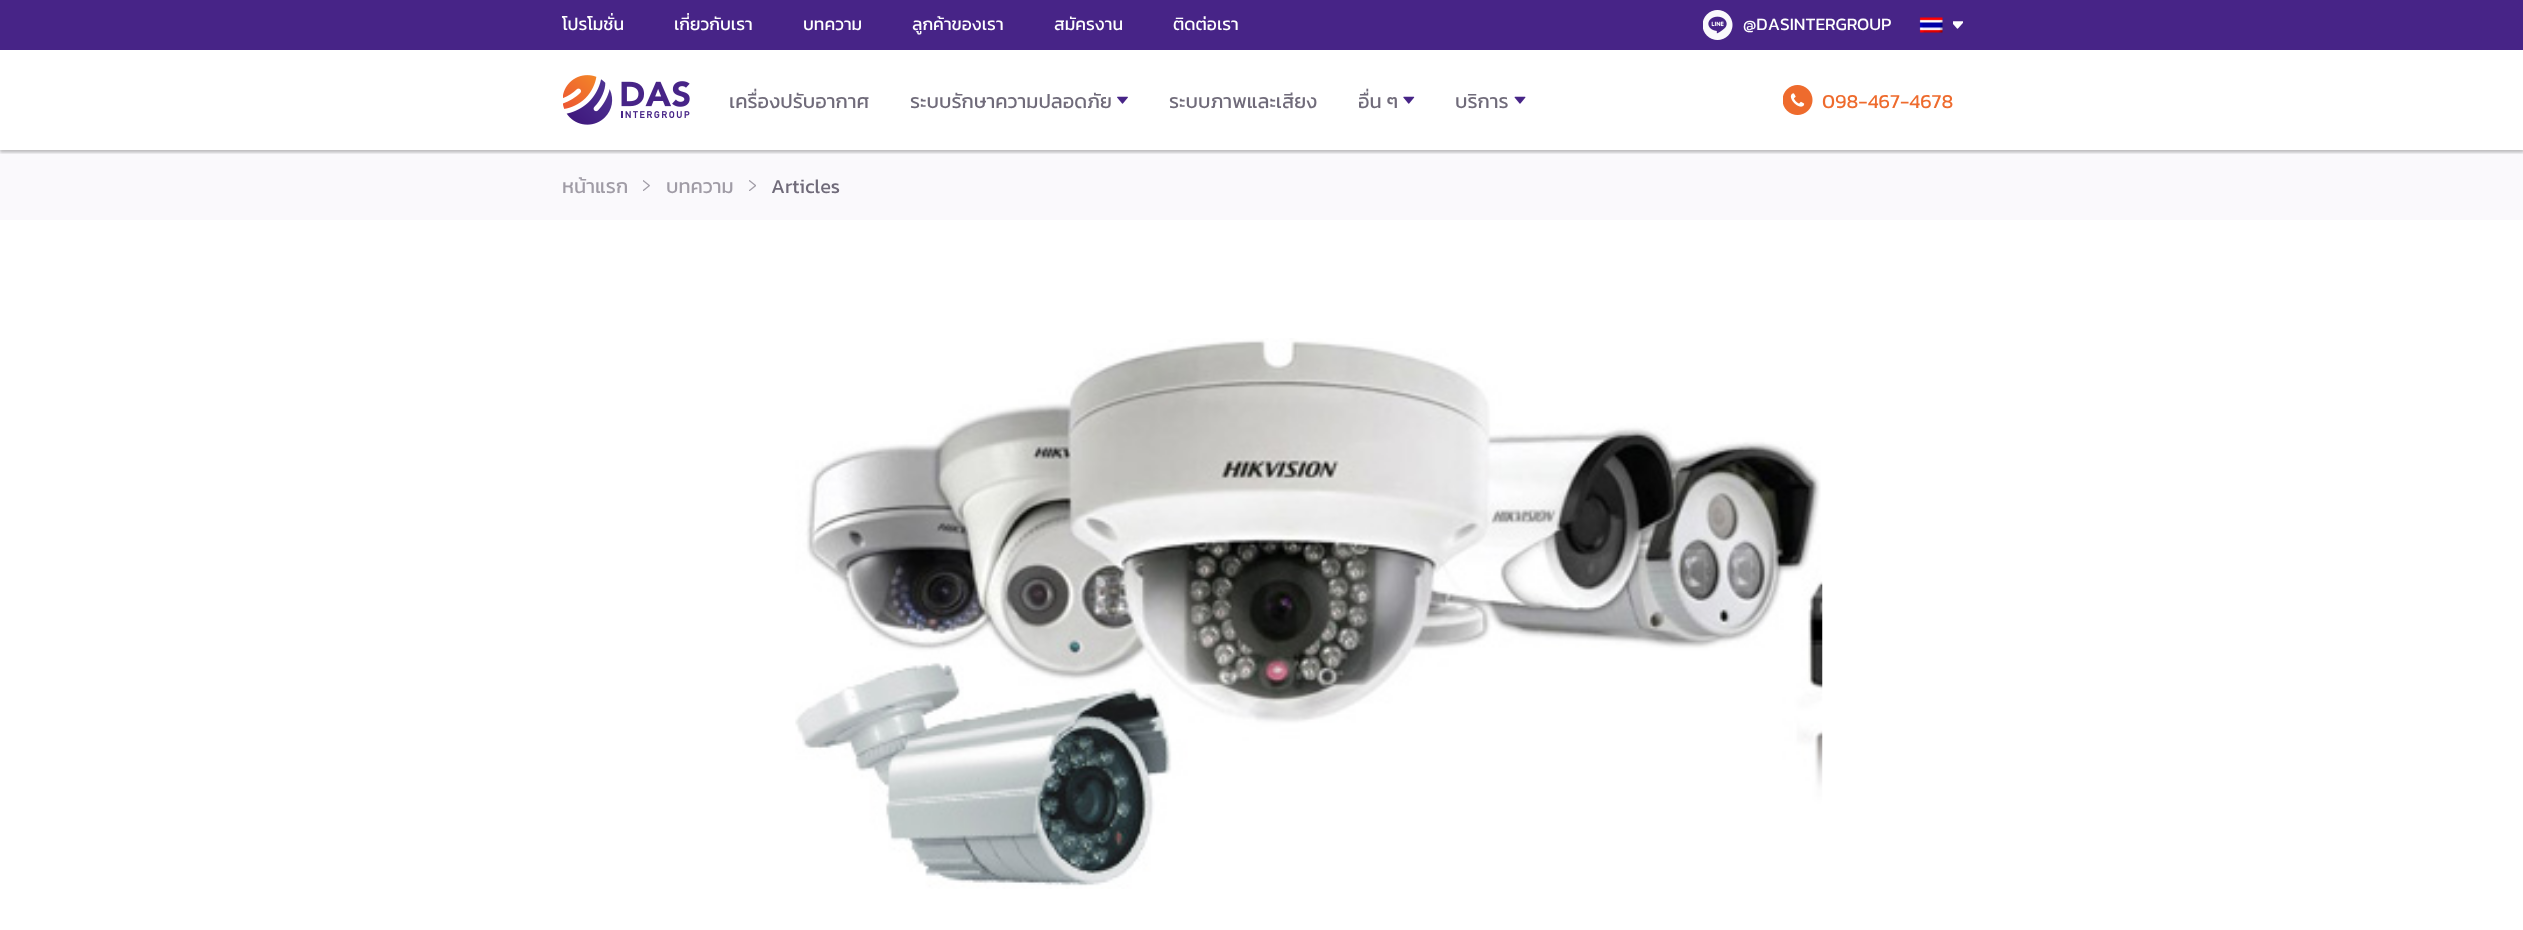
<svg xmlns="http://www.w3.org/2000/svg" width="2523" height="930" viewBox="0 0 2523 930">
  <defs>
    <clipPath id="clip1"><rect x="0" y="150" width="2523" height="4"/></clipPath>
    <filter id="blur1" x="-50%" y="-200%" width="200%" height="500%"><feGaussianBlur stdDeviation="2"/></filter>
    <filter id="blur2" x="-50%" y="-200%" width="200%" height="500%"><feGaussianBlur stdDeviation="1"/></filter>
  </defs>
  <rect width="100%" height="100%" fill="#ffffff"/>
  <rect x="0" y="150" width="2523" height="70" fill="#faf9fc"/>
  <g clip-path="url(#clip1)">
    <rect x="0" y="1" width="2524" height="150" fill="#000000" fill-opacity="0.2" filter="url(#blur1)"/>
    <rect x="0" y="3" width="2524" height="150" fill="#000000" fill-opacity="0.12" filter="url(#blur2)"/>
  </g>
  <rect x="0" y="0" width="2523" height="50" fill="#472487"/>
  <text x="562" y="30" font-family="Kanit" font-size="17.5" fill="#ffffff">โปรโมชั่น</text>
  <text x="674" y="30" font-family="Kanit" font-size="17.5" fill="#ffffff">เกี่ยวกับเรา</text>
  <text x="803" y="30" font-family="Kanit" font-size="17.5" fill="#ffffff">บทความ</text>
  <text x="912" y="30" font-family="Kanit" font-size="17.5" fill="#ffffff">ลูกค้าของเรา</text>
  <text x="1054" y="30" font-family="Kanit" font-size="17.5" fill="#ffffff">สมัครงาน</text>
  <text x="1173" y="30" font-family="Kanit" font-size="17.5" fill="#ffffff">ติดต่อเรา</text>
  <image x="1703" y="10" width="30" height="30" href="img1.png"/>
  <text x="1743" y="30" font-family="Kanit" font-size="17.5" fill="#ffffff">@DASINTERGROUP</text>
  <image x="1919" y="17" width="24" height="16" href="img2.png"/>
  <image x="1953" y="21" width="10" height="8" href="img3.png"/>
  <image x="563" y="75" width="127" height="50" href="img4.png"/>
  <text x="729" y="108" font-family="Kanit" font-size="20" fill="#706b7a">เครื่องปรับอากาศ</text>
  <text x="910" y="108" font-family="Kanit" font-size="20" fill="#706b7a">ระบบรักษาความปลอดภัย</text>
  <image x="1117" y="96" width="11" height="8" href="img5.png"/>
  <text x="1169" y="108" font-family="Kanit" font-size="20" fill="#706b7a">ระบบภาพและเสียง</text>
  <text x="1358" y="108" font-family="Kanit" font-size="20" fill="#706b7a">อื่น ๆ</text>
  <image x="1403" y="96" width="12" height="8" href="img6.png"/>
  <text x="1455" y="108" font-family="Kanit" font-size="20" fill="#706b7a">บริการ</text>
  <image x="1514" y="96" width="12" height="8" href="img7.png"/>
  <image x="1783" y="85" width="30" height="30" href="img8.png"/>
  <text x="1822" y="108" font-family="Kanit" font-size="20" fill="#ee6b2d">098-467-4678</text>
  <text x="562" y="193" font-family="Kanit" font-size="20" fill="#a09ca6">หน้าแรก</text>
  <image x="643" y="180" width="7" height="11" href="img9.png"/>
  <text x="666" y="193" font-family="Kanit" font-size="20" fill="#a09ca6">บทความ</text>
  <image x="749" y="180" width="7" height="11" href="img10.png"/>
  <text x="771" y="193" font-family="Kanit" font-size="20" fill="#706b7a">Articles</text>
  <image x="795" y="338" width="1028" height="551" href="img11.png"/>
</svg>
